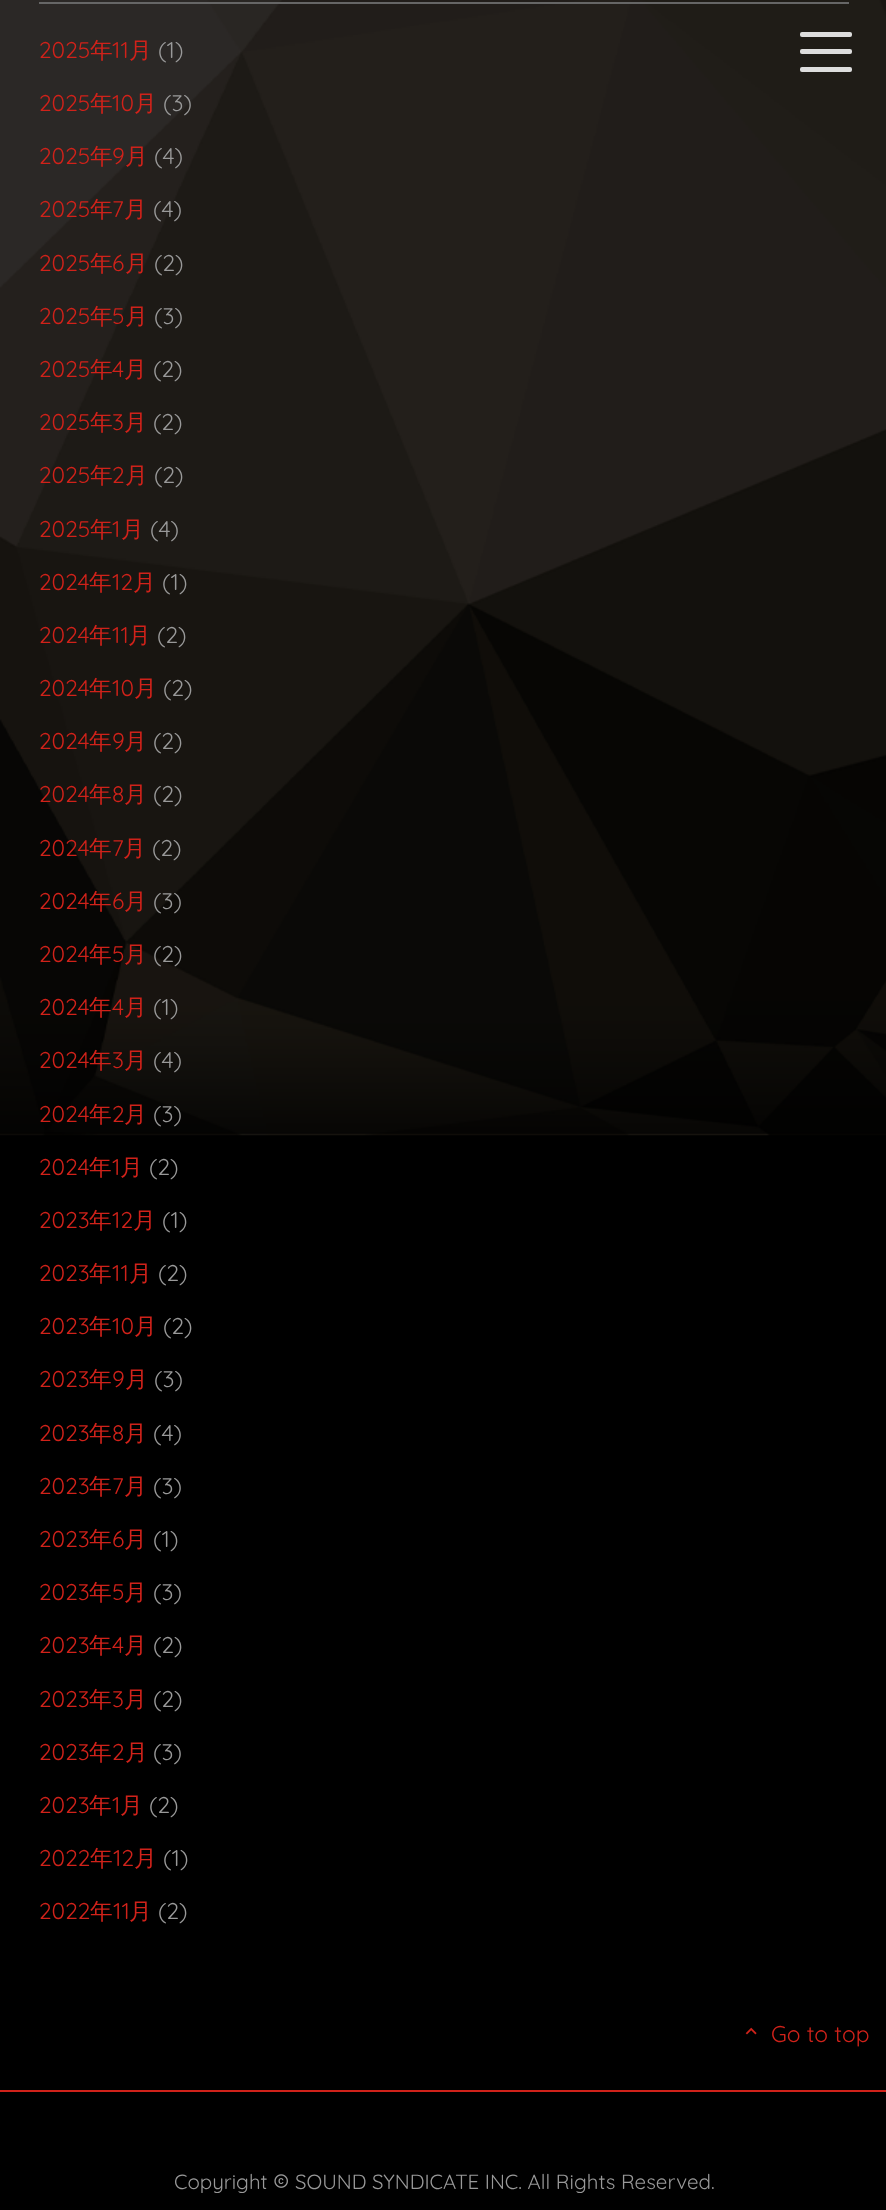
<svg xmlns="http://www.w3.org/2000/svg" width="886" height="2210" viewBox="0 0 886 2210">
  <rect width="100%" height="100%" fill="#000000"/>
  <image x="0" y="0" width="886" height="1136" href="img1.png"/>
  <rect x="800" y="49" width="52" height="5" rx="2" fill="#dddddd"/>
  <rect x="800" y="32" width="52" height="5" rx="2" fill="#dddddd"/>
  <rect x="800" y="67" width="52" height="5" rx="2" fill="#dddddd"/>
  <rect x="39" y="2" width="810" height="2" fill="#666666"/>
  <text x="39" y="58" font-family="Quicksand" font-size="22.75" font-weight="300" fill="#d0221a">2025</text>
  <text x="90" y="58" font-family="WenQuanYi Zen Hei" font-size="22.75" font-weight="500" fill="#d0221a">年</text>
  <text x="112" y="58" font-family="Quicksand" font-size="22.75" font-weight="300" fill="#d0221a">11</text>
  <text x="129" y="58" font-family="WenQuanYi Zen Hei" font-size="22.75" font-weight="500" fill="#d0221a">月</text>
  <text x="158" y="58" font-family="Quicksand" font-size="22.75" font-weight="300" fill="#999999">(1)</text>
  <text x="39" y="111" font-family="Quicksand" font-size="22.75" font-weight="300" fill="#d0221a">2025</text>
  <text x="90" y="111" font-family="WenQuanYi Zen Hei" font-size="22.75" font-weight="500" fill="#d0221a">年</text>
  <text x="112" y="111" font-family="Quicksand" font-size="22.75" font-weight="300" fill="#d0221a">10</text>
  <text x="134" y="111" font-family="WenQuanYi Zen Hei" font-size="22.75" font-weight="500" fill="#d0221a">月</text>
  <text x="163" y="111" font-family="Quicksand" font-size="22.75" font-weight="300" fill="#999999">(3)</text>
  <text x="39" y="164" font-family="Quicksand" font-size="22.75" font-weight="300" fill="#d0221a">2025</text>
  <text x="90" y="164" font-family="WenQuanYi Zen Hei" font-size="22.75" font-weight="500" fill="#d0221a">年</text>
  <text x="112" y="164" font-family="Quicksand" font-size="22.75" font-weight="300" fill="#d0221a">9</text>
  <text x="125" y="164" font-family="WenQuanYi Zen Hei" font-size="22.75" font-weight="500" fill="#d0221a">月</text>
  <text x="154" y="164" font-family="Quicksand" font-size="22.75" font-weight="300" fill="#999999">(4)</text>
  <text x="39" y="217" font-family="Quicksand" font-size="22.75" font-weight="300" fill="#d0221a">2025</text>
  <text x="90" y="217" font-family="WenQuanYi Zen Hei" font-size="22.75" font-weight="500" fill="#d0221a">年</text>
  <text x="112" y="217" font-family="Quicksand" font-size="22.75" font-weight="300" fill="#d0221a">7</text>
  <text x="124" y="217" font-family="WenQuanYi Zen Hei" font-size="22.75" font-weight="500" fill="#d0221a">月</text>
  <text x="153" y="217" font-family="Quicksand" font-size="22.75" font-weight="300" fill="#999999">(4)</text>
  <text x="39" y="271" font-family="Quicksand" font-size="22.75" font-weight="300" fill="#d0221a">2025</text>
  <text x="90" y="271" font-family="WenQuanYi Zen Hei" font-size="22.75" font-weight="500" fill="#d0221a">年</text>
  <text x="112" y="271" font-family="Quicksand" font-size="22.75" font-weight="300" fill="#d0221a">6</text>
  <text x="125" y="271" font-family="WenQuanYi Zen Hei" font-size="22.75" font-weight="500" fill="#d0221a">月</text>
  <text x="154" y="271" font-family="Quicksand" font-size="22.75" font-weight="300" fill="#999999">(2)</text>
  <text x="39" y="324" font-family="Quicksand" font-size="22.75" font-weight="300" fill="#d0221a">2025</text>
  <text x="90" y="324" font-family="WenQuanYi Zen Hei" font-size="22.75" font-weight="500" fill="#d0221a">年</text>
  <text x="112" y="324" font-family="Quicksand" font-size="22.75" font-weight="300" fill="#d0221a">5</text>
  <text x="125" y="324" font-family="WenQuanYi Zen Hei" font-size="22.75" font-weight="500" fill="#d0221a">月</text>
  <text x="154" y="324" font-family="Quicksand" font-size="22.75" font-weight="300" fill="#999999">(3)</text>
  <text x="39" y="377" font-family="Quicksand" font-size="22.75" font-weight="300" fill="#d0221a">2025</text>
  <text x="90" y="377" font-family="WenQuanYi Zen Hei" font-size="22.75" font-weight="500" fill="#d0221a">年</text>
  <text x="112" y="377" font-family="Quicksand" font-size="22.75" font-weight="300" fill="#d0221a">4</text>
  <text x="124" y="377" font-family="WenQuanYi Zen Hei" font-size="22.75" font-weight="500" fill="#d0221a">月</text>
  <text x="153" y="377" font-family="Quicksand" font-size="22.75" font-weight="300" fill="#999999">(2)</text>
  <text x="39" y="430" font-family="Quicksand" font-size="22.75" font-weight="300" fill="#d0221a">2025</text>
  <text x="90" y="430" font-family="WenQuanYi Zen Hei" font-size="22.75" font-weight="500" fill="#d0221a">年</text>
  <text x="112" y="430" font-family="Quicksand" font-size="22.75" font-weight="300" fill="#d0221a">3</text>
  <text x="124" y="430" font-family="WenQuanYi Zen Hei" font-size="22.75" font-weight="500" fill="#d0221a">月</text>
  <text x="153" y="430" font-family="Quicksand" font-size="22.75" font-weight="300" fill="#999999">(2)</text>
  <text x="39" y="483" font-family="Quicksand" font-size="22.75" font-weight="300" fill="#d0221a">2025</text>
  <text x="90" y="483" font-family="WenQuanYi Zen Hei" font-size="22.75" font-weight="500" fill="#d0221a">年</text>
  <text x="112" y="483" font-family="Quicksand" font-size="22.75" font-weight="300" fill="#d0221a">2</text>
  <text x="125" y="483" font-family="WenQuanYi Zen Hei" font-size="22.75" font-weight="500" fill="#d0221a">月</text>
  <text x="154" y="483" font-family="Quicksand" font-size="22.75" font-weight="300" fill="#999999">(2)</text>
  <text x="39" y="537" font-family="Quicksand" font-size="22.75" font-weight="300" fill="#d0221a">2025</text>
  <text x="90" y="537" font-family="WenQuanYi Zen Hei" font-size="22.75" font-weight="500" fill="#d0221a">年</text>
  <text x="112" y="537" font-family="Quicksand" font-size="22.75" font-weight="300" fill="#d0221a">1</text>
  <text x="121" y="537" font-family="WenQuanYi Zen Hei" font-size="22.75" font-weight="500" fill="#d0221a">月</text>
  <text x="150" y="537" font-family="Quicksand" font-size="22.75" font-weight="300" fill="#999999">(4)</text>
  <text x="39" y="590" font-family="Quicksand" font-size="22.75" font-weight="300" fill="#d0221a">2024</text>
  <text x="89" y="590" font-family="WenQuanYi Zen Hei" font-size="22.75" font-weight="500" fill="#d0221a">年</text>
  <text x="112" y="590" font-family="Quicksand" font-size="22.75" font-weight="300" fill="#d0221a">12</text>
  <text x="133" y="590" font-family="WenQuanYi Zen Hei" font-size="22.75" font-weight="500" fill="#d0221a">月</text>
  <text x="162" y="590" font-family="Quicksand" font-size="22.75" font-weight="300" fill="#999999">(1)</text>
  <text x="39" y="643" font-family="Quicksand" font-size="22.75" font-weight="300" fill="#d0221a">2024</text>
  <text x="89" y="643" font-family="WenQuanYi Zen Hei" font-size="22.75" font-weight="500" fill="#d0221a">年</text>
  <text x="112" y="643" font-family="Quicksand" font-size="22.75" font-weight="300" fill="#d0221a">11</text>
  <text x="128" y="643" font-family="WenQuanYi Zen Hei" font-size="22.75" font-weight="500" fill="#d0221a">月</text>
  <text x="157" y="643" font-family="Quicksand" font-size="22.75" font-weight="300" fill="#999999">(2)</text>
  <text x="39" y="696" font-family="Quicksand" font-size="22.75" font-weight="300" fill="#d0221a">2024</text>
  <text x="89" y="696" font-family="WenQuanYi Zen Hei" font-size="22.75" font-weight="500" fill="#d0221a">年</text>
  <text x="112" y="696" font-family="Quicksand" font-size="22.75" font-weight="300" fill="#d0221a">10</text>
  <text x="134" y="696" font-family="WenQuanYi Zen Hei" font-size="22.75" font-weight="500" fill="#d0221a">月</text>
  <text x="163" y="696" font-family="Quicksand" font-size="22.75" font-weight="300" fill="#999999">(2)</text>
  <text x="39" y="749" font-family="Quicksand" font-size="22.75" font-weight="300" fill="#d0221a">2024</text>
  <text x="89" y="749" font-family="WenQuanYi Zen Hei" font-size="22.75" font-weight="500" fill="#d0221a">年</text>
  <text x="112" y="749" font-family="Quicksand" font-size="22.75" font-weight="300" fill="#d0221a">9</text>
  <text x="124" y="749" font-family="WenQuanYi Zen Hei" font-size="22.75" font-weight="500" fill="#d0221a">月</text>
  <text x="153" y="749" font-family="Quicksand" font-size="22.75" font-weight="300" fill="#999999">(2)</text>
  <text x="39" y="802" font-family="Quicksand" font-size="22.75" font-weight="300" fill="#d0221a">2024</text>
  <text x="89" y="802" font-family="WenQuanYi Zen Hei" font-size="22.75" font-weight="500" fill="#d0221a">年</text>
  <text x="112" y="802" font-family="Quicksand" font-size="22.75" font-weight="300" fill="#d0221a">8</text>
  <text x="124" y="802" font-family="WenQuanYi Zen Hei" font-size="22.75" font-weight="500" fill="#d0221a">月</text>
  <text x="153" y="802" font-family="Quicksand" font-size="22.75" font-weight="300" fill="#999999">(2)</text>
  <text x="39" y="856" font-family="Quicksand" font-size="22.75" font-weight="300" fill="#d0221a">2024</text>
  <text x="89" y="856" font-family="WenQuanYi Zen Hei" font-size="22.75" font-weight="500" fill="#d0221a">年</text>
  <text x="112" y="856" font-family="Quicksand" font-size="22.75" font-weight="300" fill="#d0221a">7</text>
  <text x="123" y="856" font-family="WenQuanYi Zen Hei" font-size="22.75" font-weight="500" fill="#d0221a">月</text>
  <text x="152" y="856" font-family="Quicksand" font-size="22.75" font-weight="300" fill="#999999">(2)</text>
  <text x="39" y="909" font-family="Quicksand" font-size="22.75" font-weight="300" fill="#d0221a">2024</text>
  <text x="89" y="909" font-family="WenQuanYi Zen Hei" font-size="22.75" font-weight="500" fill="#d0221a">年</text>
  <text x="112" y="909" font-family="Quicksand" font-size="22.75" font-weight="300" fill="#d0221a">6</text>
  <text x="124" y="909" font-family="WenQuanYi Zen Hei" font-size="22.75" font-weight="500" fill="#d0221a">月</text>
  <text x="153" y="909" font-family="Quicksand" font-size="22.75" font-weight="300" fill="#999999">(3)</text>
  <text x="39" y="962" font-family="Quicksand" font-size="22.75" font-weight="300" fill="#d0221a">2024</text>
  <text x="89" y="962" font-family="WenQuanYi Zen Hei" font-size="22.75" font-weight="500" fill="#d0221a">年</text>
  <text x="112" y="962" font-family="Quicksand" font-size="22.75" font-weight="300" fill="#d0221a">5</text>
  <text x="124" y="962" font-family="WenQuanYi Zen Hei" font-size="22.75" font-weight="500" fill="#d0221a">月</text>
  <text x="153" y="962" font-family="Quicksand" font-size="22.75" font-weight="300" fill="#999999">(2)</text>
  <text x="39" y="1015" font-family="Quicksand" font-size="22.75" font-weight="300" fill="#d0221a">2024</text>
  <text x="89" y="1015" font-family="WenQuanYi Zen Hei" font-size="22.75" font-weight="500" fill="#d0221a">年</text>
  <text x="112" y="1015" font-family="Quicksand" font-size="22.75" font-weight="300" fill="#d0221a">4</text>
  <text x="124" y="1015" font-family="WenQuanYi Zen Hei" font-size="22.75" font-weight="500" fill="#d0221a">月</text>
  <text x="153" y="1015" font-family="Quicksand" font-size="22.75" font-weight="300" fill="#999999">(1)</text>
  <text x="39" y="1068" font-family="Quicksand" font-size="22.75" font-weight="300" fill="#d0221a">2024</text>
  <text x="89" y="1068" font-family="WenQuanYi Zen Hei" font-size="22.75" font-weight="500" fill="#d0221a">年</text>
  <text x="112" y="1068" font-family="Quicksand" font-size="22.75" font-weight="300" fill="#d0221a">3</text>
  <text x="124" y="1068" font-family="WenQuanYi Zen Hei" font-size="22.75" font-weight="500" fill="#d0221a">月</text>
  <text x="153" y="1068" font-family="Quicksand" font-size="22.75" font-weight="300" fill="#999999">(4)</text>
  <text x="39" y="1122" font-family="Quicksand" font-size="22.75" font-weight="300" fill="#d0221a">2024</text>
  <text x="89" y="1122" font-family="WenQuanYi Zen Hei" font-size="22.75" font-weight="500" fill="#d0221a">年</text>
  <text x="112" y="1122" font-family="Quicksand" font-size="22.75" font-weight="300" fill="#d0221a">2</text>
  <text x="124" y="1122" font-family="WenQuanYi Zen Hei" font-size="22.75" font-weight="500" fill="#d0221a">月</text>
  <text x="153" y="1122" font-family="Quicksand" font-size="22.75" font-weight="300" fill="#999999">(3)</text>
  <text x="39" y="1175" font-family="Quicksand" font-size="22.75" font-weight="300" fill="#d0221a">2024</text>
  <text x="89" y="1175" font-family="WenQuanYi Zen Hei" font-size="22.75" font-weight="500" fill="#d0221a">年</text>
  <text x="112" y="1175" font-family="Quicksand" font-size="22.75" font-weight="300" fill="#d0221a">1</text>
  <text x="120" y="1175" font-family="WenQuanYi Zen Hei" font-size="22.75" font-weight="500" fill="#d0221a">月</text>
  <text x="149" y="1175" font-family="Quicksand" font-size="22.75" font-weight="300" fill="#999999">(2)</text>
  <text x="39" y="1228" font-family="Quicksand" font-size="22.75" font-weight="300" fill="#d0221a">2023</text>
  <text x="89" y="1228" font-family="WenQuanYi Zen Hei" font-size="22.75" font-weight="500" fill="#d0221a">年</text>
  <text x="112" y="1228" font-family="Quicksand" font-size="22.75" font-weight="300" fill="#d0221a">12</text>
  <text x="133" y="1228" font-family="WenQuanYi Zen Hei" font-size="22.75" font-weight="500" fill="#d0221a">月</text>
  <text x="162" y="1228" font-family="Quicksand" font-size="22.75" font-weight="300" fill="#999999">(1)</text>
  <text x="39" y="1281" font-family="Quicksand" font-size="22.75" font-weight="300" fill="#d0221a">2023</text>
  <text x="89" y="1281" font-family="WenQuanYi Zen Hei" font-size="22.75" font-weight="500" fill="#d0221a">年</text>
  <text x="112" y="1281" font-family="Quicksand" font-size="22.75" font-weight="300" fill="#d0221a">11</text>
  <text x="129" y="1281" font-family="WenQuanYi Zen Hei" font-size="22.75" font-weight="500" fill="#d0221a">月</text>
  <text x="158" y="1281" font-family="Quicksand" font-size="22.75" font-weight="300" fill="#999999">(2)</text>
  <text x="39" y="1334" font-family="Quicksand" font-size="22.75" font-weight="300" fill="#d0221a">2023</text>
  <text x="89" y="1334" font-family="WenQuanYi Zen Hei" font-size="22.75" font-weight="500" fill="#d0221a">年</text>
  <text x="112" y="1334" font-family="Quicksand" font-size="22.75" font-weight="300" fill="#d0221a">10</text>
  <text x="134" y="1334" font-family="WenQuanYi Zen Hei" font-size="22.75" font-weight="500" fill="#d0221a">月</text>
  <text x="163" y="1334" font-family="Quicksand" font-size="22.75" font-weight="300" fill="#999999">(2)</text>
  <text x="39" y="1387" font-family="Quicksand" font-size="22.75" font-weight="300" fill="#d0221a">2023</text>
  <text x="89" y="1387" font-family="WenQuanYi Zen Hei" font-size="22.75" font-weight="500" fill="#d0221a">年</text>
  <text x="112" y="1387" font-family="Quicksand" font-size="22.75" font-weight="300" fill="#d0221a">9</text>
  <text x="125" y="1387" font-family="WenQuanYi Zen Hei" font-size="22.75" font-weight="500" fill="#d0221a">月</text>
  <text x="154" y="1387" font-family="Quicksand" font-size="22.75" font-weight="300" fill="#999999">(3)</text>
  <text x="39" y="1441" font-family="Quicksand" font-size="22.75" font-weight="300" fill="#d0221a">2023</text>
  <text x="89" y="1441" font-family="WenQuanYi Zen Hei" font-size="22.75" font-weight="500" fill="#d0221a">年</text>
  <text x="112" y="1441" font-family="Quicksand" font-size="22.75" font-weight="300" fill="#d0221a">8</text>
  <text x="124" y="1441" font-family="WenQuanYi Zen Hei" font-size="22.75" font-weight="500" fill="#d0221a">月</text>
  <text x="153" y="1441" font-family="Quicksand" font-size="22.75" font-weight="300" fill="#999999">(4)</text>
  <text x="39" y="1494" font-family="Quicksand" font-size="22.75" font-weight="300" fill="#d0221a">2023</text>
  <text x="89" y="1494" font-family="WenQuanYi Zen Hei" font-size="22.75" font-weight="500" fill="#d0221a">年</text>
  <text x="112" y="1494" font-family="Quicksand" font-size="22.75" font-weight="300" fill="#d0221a">7</text>
  <text x="124" y="1494" font-family="WenQuanYi Zen Hei" font-size="22.75" font-weight="500" fill="#d0221a">月</text>
  <text x="153" y="1494" font-family="Quicksand" font-size="22.75" font-weight="300" fill="#999999">(3)</text>
  <text x="39" y="1547" font-family="Quicksand" font-size="22.75" font-weight="300" fill="#d0221a">2023</text>
  <text x="89" y="1547" font-family="WenQuanYi Zen Hei" font-size="22.75" font-weight="500" fill="#d0221a">年</text>
  <text x="112" y="1547" font-family="Quicksand" font-size="22.75" font-weight="300" fill="#d0221a">6</text>
  <text x="124" y="1547" font-family="WenQuanYi Zen Hei" font-size="22.75" font-weight="500" fill="#d0221a">月</text>
  <text x="153" y="1547" font-family="Quicksand" font-size="22.75" font-weight="300" fill="#999999">(1)</text>
  <text x="39" y="1600" font-family="Quicksand" font-size="22.75" font-weight="300" fill="#d0221a">2023</text>
  <text x="89" y="1600" font-family="WenQuanYi Zen Hei" font-size="22.75" font-weight="500" fill="#d0221a">年</text>
  <text x="112" y="1600" font-family="Quicksand" font-size="22.75" font-weight="300" fill="#d0221a">5</text>
  <text x="124" y="1600" font-family="WenQuanYi Zen Hei" font-size="22.75" font-weight="500" fill="#d0221a">月</text>
  <text x="153" y="1600" font-family="Quicksand" font-size="22.75" font-weight="300" fill="#999999">(3)</text>
  <text x="39" y="1653" font-family="Quicksand" font-size="22.75" font-weight="300" fill="#d0221a">2023</text>
  <text x="89" y="1653" font-family="WenQuanYi Zen Hei" font-size="22.75" font-weight="500" fill="#d0221a">年</text>
  <text x="112" y="1653" font-family="Quicksand" font-size="22.75" font-weight="300" fill="#d0221a">4</text>
  <text x="124" y="1653" font-family="WenQuanYi Zen Hei" font-size="22.75" font-weight="500" fill="#d0221a">月</text>
  <text x="153" y="1653" font-family="Quicksand" font-size="22.75" font-weight="300" fill="#999999">(2)</text>
  <text x="39" y="1707" font-family="Quicksand" font-size="22.75" font-weight="300" fill="#d0221a">2023</text>
  <text x="89" y="1707" font-family="WenQuanYi Zen Hei" font-size="22.75" font-weight="500" fill="#d0221a">年</text>
  <text x="112" y="1707" font-family="Quicksand" font-size="22.75" font-weight="300" fill="#d0221a">3</text>
  <text x="124" y="1707" font-family="WenQuanYi Zen Hei" font-size="22.75" font-weight="500" fill="#d0221a">月</text>
  <text x="153" y="1707" font-family="Quicksand" font-size="22.75" font-weight="300" fill="#999999">(2)</text>
  <text x="39" y="1760" font-family="Quicksand" font-size="22.75" font-weight="300" fill="#d0221a">2023</text>
  <text x="89" y="1760" font-family="WenQuanYi Zen Hei" font-size="22.75" font-weight="500" fill="#d0221a">年</text>
  <text x="112" y="1760" font-family="Quicksand" font-size="22.75" font-weight="300" fill="#d0221a">2</text>
  <text x="125" y="1760" font-family="WenQuanYi Zen Hei" font-size="22.75" font-weight="500" fill="#d0221a">月</text>
  <text x="153" y="1760" font-family="Quicksand" font-size="22.75" font-weight="300" fill="#999999">(3)</text>
  <text x="39" y="1813" font-family="Quicksand" font-size="22.75" font-weight="300" fill="#d0221a">2023</text>
  <text x="89" y="1813" font-family="WenQuanYi Zen Hei" font-size="22.75" font-weight="500" fill="#d0221a">年</text>
  <text x="112" y="1813" font-family="Quicksand" font-size="22.75" font-weight="300" fill="#d0221a">1</text>
  <text x="120" y="1813" font-family="WenQuanYi Zen Hei" font-size="22.75" font-weight="500" fill="#d0221a">月</text>
  <text x="149" y="1813" font-family="Quicksand" font-size="22.75" font-weight="300" fill="#999999">(2)</text>
  <text x="39" y="1866" font-family="Quicksand" font-size="22.75" font-weight="300" fill="#d0221a">2022</text>
  <text x="90" y="1866" font-family="WenQuanYi Zen Hei" font-size="22.75" font-weight="500" fill="#d0221a">年</text>
  <text x="113" y="1866" font-family="Quicksand" font-size="22.75" font-weight="300" fill="#d0221a">12</text>
  <text x="134" y="1866" font-family="WenQuanYi Zen Hei" font-size="22.75" font-weight="500" fill="#d0221a">月</text>
  <text x="163" y="1866" font-family="Quicksand" font-size="22.75" font-weight="300" fill="#999999">(1)</text>
  <text x="39" y="1919" font-family="Quicksand" font-size="22.75" font-weight="300" fill="#d0221a">2022</text>
  <text x="90" y="1919" font-family="WenQuanYi Zen Hei" font-size="22.75" font-weight="500" fill="#d0221a">年</text>
  <text x="113" y="1919" font-family="Quicksand" font-size="22.75" font-weight="300" fill="#d0221a">11</text>
  <text x="129" y="1919" font-family="WenQuanYi Zen Hei" font-size="22.75" font-weight="500" fill="#d0221a">月</text>
  <text x="158" y="1919" font-family="Quicksand" font-size="22.75" font-weight="300" fill="#999999">(2)</text>
  <image x="745" y="2027" width="12" height="8" href="img2.png"/>
  <text x="771" y="2042" font-family="Quicksand" font-size="22.75" font-weight="300" fill="#d0221a">Go to top</text>
  <rect x="0" y="2090" width="886" height="2" fill="#d0221a"/>
  <text x="174" y="2189" font-family="Quicksand" font-size="20.5" font-weight="300" fill="#999999">Copyright</text>
  <image x="274" y="2174" width="14" height="14" href="img3.png"/>
  <text x="295" y="2189" font-family="Quicksand" font-size="20.5" font-weight="300" fill="#999999">SOUND SYNDICATE INC. All Rights Reserved.</text>
</svg>
